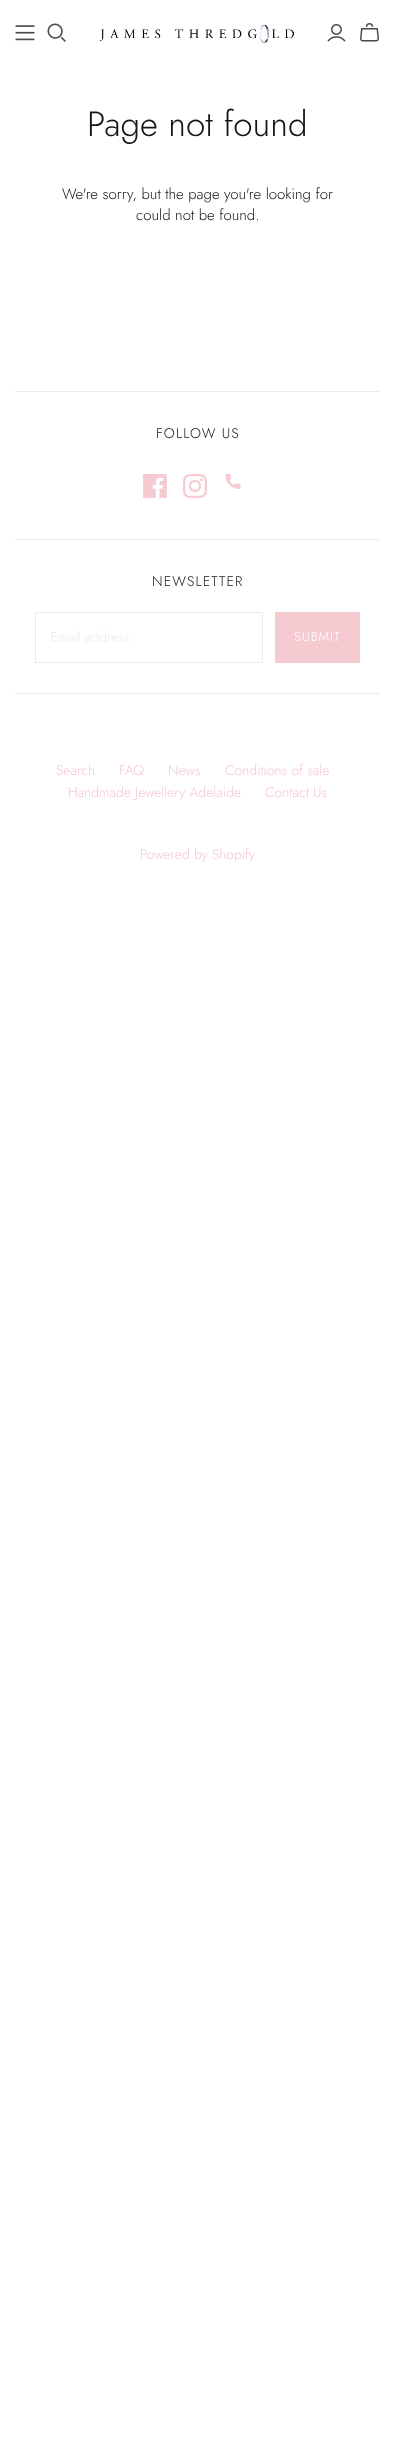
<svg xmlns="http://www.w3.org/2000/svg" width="395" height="2444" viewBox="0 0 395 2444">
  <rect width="100%" height="100%" fill="#ffffff"/>
  <image x="15" y="25" width="20" height="16" href="img1.png"/>
  <image x="47" y="23" width="19" height="19" href="img2.png"/>
  <image x="327" y="24" width="19" height="18" href="img3.png"/>
  <image x="360" y="23" width="19" height="19" href="img4.png"/>
  <image x="99" y="24" width="195" height="19" href="img5.png"/>
  <text x="87" y="136" font-family="Jost" font-size="35" font-weight="300" fill="#161616">Page not found</text>
  <text x="62" y="199" font-family="Jost" font-size="15" font-weight="300" fill="#161616">We're sorry, but the page you're looking for</text>
  <text x="136" y="220" font-family="Jost" font-size="15" font-weight="300" fill="#161616">could not be found.</text>
  <rect x="15" y="391" width="365" height="1" fill="#ebebeb"/>
  <rect x="15" y="693" width="365" height="1" fill="#ebebeb"/>
  <text x="156" y="438" font-family="Jost" font-size="14" font-weight="300" letter-spacing="1.1" fill="#161616">FOLLOW US</text>
  <image x="143" y="474" width="24" height="24" href="img6.png"/>
  <image x="183" y="474" width="24" height="24" href="img7.png"/>
  <image x="225" y="474" width="16" height="15" href="img8.png"/>
  <rect x="15" y="539" width="365" height="1" fill="#ebebeb"/>
  <text x="152" y="586" font-family="Jost" font-size="14" font-weight="300" letter-spacing="1.1" fill="#161616">NEWSLETTER</text>
  <rect x="35.5" y="612.5" width="227" height="50" fill="none" stroke="#ebebeb"/>
  <text x="50" y="642" font-family="Jost" font-size="14" font-weight="300" fill="#ebebeb">Email address</text>
  <rect x="275" y="612" width="85" height="51" fill="#f5cad1"/>
  <text x="294" y="641" font-family="Jost" font-size="13" font-weight="300" letter-spacing="1" fill="#ffffff">SUBMIT</text>
  <text x="56" y="775" font-family="Jost" font-size="14" font-weight="300" fill="#f5cad1">Search</text>
  <text x="119" y="775" font-family="Jost" font-size="14" font-weight="300" fill="#f5cad1">FAQ</text>
  <text x="168" y="775" font-family="Jost" font-size="14" font-weight="300" fill="#f5cad1">News</text>
  <text x="225" y="775" font-family="Jost" font-size="14" font-weight="300" fill="#f5cad1">Conditions of sale</text>
  <text x="68" y="797" font-family="Jost" font-size="14" font-weight="300" fill="#f5cad1">Handmade Jewellery Adelaide</text>
  <text x="265" y="797" font-family="Jost" font-size="14" font-weight="300" fill="#f5cad1">Contact Us</text>
  <text x="140" y="859" font-family="Jost" font-size="14" font-weight="300" fill="#f5cad1">Powered by Shopify</text>
</svg>
